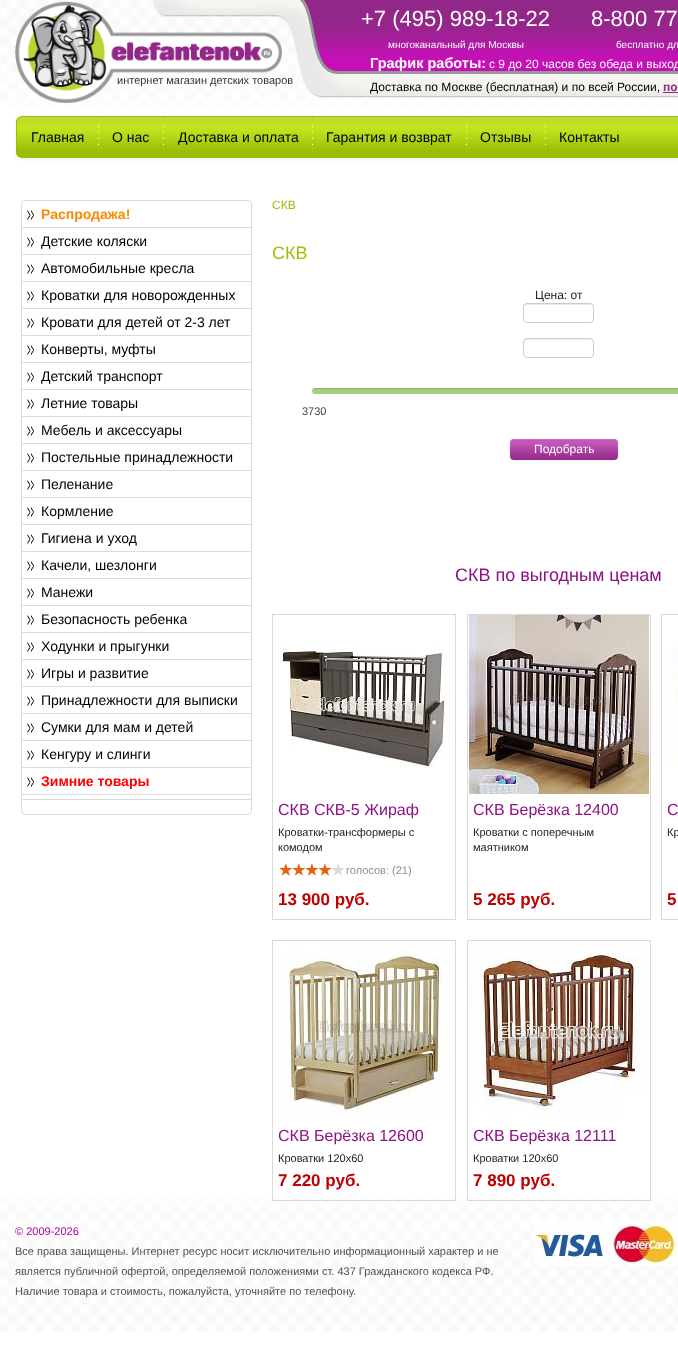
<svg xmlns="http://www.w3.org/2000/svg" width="678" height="1363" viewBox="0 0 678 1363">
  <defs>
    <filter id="blur1" x="-50%" y="-200%" width="200%" height="500%"><feGaussianBlur stdDeviation="2"/></filter>
    <clipPath id="clip1"><rect x="16" y="116" width="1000" height="42" rx="6"/></clipPath>
    <linearGradient id="g1" gradientUnits="userSpaceOnUse" x1="516" y1="117" x2="516" y2="157"><stop offset="0" stop-color="#fefefc"/><stop offset="0" stop-color="#e6f1c6"/><stop offset="0" stop-color="#c0db56"/><stop offset="0" stop-color="#bedb35"/><stop offset="0.13" stop-color="#bddf26"/><stop offset="0.18" stop-color="#c1e426"/><stop offset="0.24" stop-color="#c3e421"/><stop offset="0.37" stop-color="#bde11b"/><stop offset="0.42" stop-color="#b7dc1a"/><stop offset="0.53" stop-color="#b3d617"/><stop offset="0.71" stop-color="#a3c70b"/><stop offset="0.79" stop-color="#9fc30b"/><stop offset="0.84" stop-color="#9abd07"/><stop offset="0.87" stop-color="#99bd03"/><stop offset="1" stop-color="#9dbf11"/><stop offset="1" stop-color="#acc73c"/><stop offset="1" stop-color="#e4edc2"/><stop offset="1" stop-color="#fefffd"/><stop offset="1" stop-color="#feffff"/></linearGradient>
    <filter id="blur2" x="-50%" y="-200%" width="200%" height="500%"><feGaussianBlur stdDeviation="1"/></filter>
    <linearGradient id="g2" gradientUnits="userSpaceOnUse" x1="564" y1="439" x2="564" y2="460"><stop offset="0" stop-color="#b53fa9"/><stop offset="0.05" stop-color="#c152b7"/><stop offset="0.1" stop-color="#c55cbc"/><stop offset="0.25" stop-color="#be54b5"/><stop offset="0.8" stop-color="#9d3293"/><stop offset="1" stop-color="#94298a"/></linearGradient>
  </defs>
  <rect width="100%" height="100%" fill="#ffffff"/>
  <image x="0" y="1197" width="678" height="135" href="img1.png"/>
  <image x="0" y="0" width="678" height="107" href="img2.png"/>
  <image x="152" y="0" width="526" height="98" href="img3.png"/>
  <image x="15" y="1" width="267" height="102" href="img4.png"/>
  <text x="117" y="84" font-family="Liberation Sans" font-size="11" fill="#333333">интернет магазин детских товаров</text>
  <text x="361" y="26" font-family="Liberation Sans" font-size="22" fill="#ffffff">+7 (495) 989-18-22</text>
  <text x="388" y="48" font-family="Liberation Sans" font-size="10" fill="#ffffff">многоканальный для Москвы</text>
  <text x="591" y="26" font-family="Liberation Sans" font-size="22" fill="#ffffff">8-800 77</text>
  <text x="616" y="48" font-family="Liberation Sans" font-size="10" fill="#ffffff">бесплатно дл</text>
  <text x="370" y="68" font-family="Liberation Sans" font-size="14.5" font-weight="bold" fill="#ffffff">График работы:</text>
  <text x="489" y="68" font-family="Liberation Sans" font-size="12" fill="#ffffff">c 9 до 20 часов без обеда и выход</text>
  <text x="370" y="91" font-family="Liberation Sans" font-size="12" fill="#000000">Доставка по Москве (бесплатная) и по всей России,</text>
  <text x="663" y="91" font-family="Liberation Sans" font-size="12" font-weight="bold" fill="#932789">по</text>
  <rect x="663" y="92" width="15" height="1" fill="#932789"/>
  <rect x="16" y="117" width="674" height="42" rx="6" fill="#000000" fill-opacity="0.07" filter="url(#blur1)"/>
  <g clip-path="url(#clip1)">
    <rect x="16" y="117" width="662" height="40" fill="url(#g1)"/>
  </g>
  <rect x="16.5" y="116.5" width="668" height="41" rx="5.5" fill="none" stroke="#9dbd00"/>
  <text x="31" y="142" font-family="Liberation Sans" font-size="14" fill="#000000">Главная</text>
  <image x="98" y="117" width="1" height="39" href="img5.png"/>
  <text x="112" y="142" font-family="Liberation Sans" font-size="14" fill="#000000">О нас</text>
  <image x="163" y="117" width="1" height="39" href="img5.png"/>
  <text x="178" y="142" font-family="Liberation Sans" font-size="14" fill="#000000">Доставка и оплата</text>
  <image x="312" y="117" width="1" height="39" href="img5.png"/>
  <text x="326" y="142" font-family="Liberation Sans" font-size="14" fill="#000000">Гарантия и возврат</text>
  <image x="466" y="117" width="1" height="39" href="img5.png"/>
  <text x="480" y="142" font-family="Liberation Sans" font-size="14" fill="#000000">Отзывы</text>
  <image x="545" y="117" width="1" height="39" href="img5.png"/>
  <text x="559" y="142" font-family="Liberation Sans" font-size="14" fill="#000000">Контакты</text>
  <rect x="21.5" y="200.5" width="230" height="614" rx="3.5" fill="none" stroke="#dbdbdb"/>
  <rect x="22" y="227" width="229" height="1" fill="#dbdbdb"/>
  <image x="27" y="210" width="7" height="11" href="img6.png"/>
  <text x="41" y="219" font-family="Liberation Sans" font-size="14" font-weight="bold" fill="#fa8a02">Распродажа!</text>
  <rect x="22" y="254" width="229" height="1" fill="#dbdbdb"/>
  <image x="27" y="237" width="7" height="11" href="img6.png"/>
  <text x="41" y="246" font-family="Liberation Sans" font-size="14" fill="#000000">Детские коляски</text>
  <rect x="22" y="281" width="229" height="1" fill="#dbdbdb"/>
  <image x="27" y="264" width="7" height="11" href="img6.png"/>
  <text x="41" y="273" font-family="Liberation Sans" font-size="14" fill="#000000">Автомобильные кресла</text>
  <rect x="22" y="308" width="229" height="1" fill="#dbdbdb"/>
  <image x="27" y="291" width="7" height="11" href="img6.png"/>
  <text x="41" y="300" font-family="Liberation Sans" font-size="14" fill="#000000">Кроватки для новорожденных</text>
  <rect x="22" y="335" width="229" height="1" fill="#dbdbdb"/>
  <image x="27" y="318" width="7" height="11" href="img6.png"/>
  <text x="41" y="327" font-family="Liberation Sans" font-size="14" fill="#000000">Кровати для детей от 2-3 лет</text>
  <rect x="22" y="362" width="229" height="1" fill="#dbdbdb"/>
  <image x="27" y="345" width="7" height="11" href="img6.png"/>
  <text x="41" y="354" font-family="Liberation Sans" font-size="14" fill="#000000">Конверты, муфты</text>
  <rect x="22" y="389" width="229" height="1" fill="#dbdbdb"/>
  <image x="27" y="372" width="7" height="11" href="img6.png"/>
  <text x="41" y="381" font-family="Liberation Sans" font-size="14" fill="#000000">Детский транспорт</text>
  <rect x="22" y="416" width="229" height="1" fill="#dbdbdb"/>
  <image x="27" y="399" width="7" height="11" href="img6.png"/>
  <text x="41" y="408" font-family="Liberation Sans" font-size="14" fill="#000000">Летние товары</text>
  <rect x="22" y="443" width="229" height="1" fill="#dbdbdb"/>
  <image x="27" y="426" width="7" height="11" href="img6.png"/>
  <text x="41" y="435" font-family="Liberation Sans" font-size="14" fill="#000000">Мебель и аксессуары</text>
  <rect x="22" y="470" width="229" height="1" fill="#dbdbdb"/>
  <image x="27" y="453" width="7" height="11" href="img6.png"/>
  <text x="41" y="462" font-family="Liberation Sans" font-size="14" fill="#000000">Постельные принадлежности</text>
  <rect x="22" y="497" width="229" height="1" fill="#dbdbdb"/>
  <image x="27" y="480" width="7" height="11" href="img6.png"/>
  <text x="41" y="489" font-family="Liberation Sans" font-size="14" fill="#000000">Пеленание</text>
  <rect x="22" y="524" width="229" height="1" fill="#dbdbdb"/>
  <image x="27" y="507" width="7" height="11" href="img6.png"/>
  <text x="41" y="516" font-family="Liberation Sans" font-size="14" fill="#000000">Кормление</text>
  <rect x="22" y="551" width="229" height="1" fill="#dbdbdb"/>
  <image x="27" y="534" width="7" height="11" href="img6.png"/>
  <text x="41" y="543" font-family="Liberation Sans" font-size="14" fill="#000000">Гигиена и уход</text>
  <rect x="22" y="578" width="229" height="1" fill="#dbdbdb"/>
  <image x="27" y="561" width="7" height="11" href="img6.png"/>
  <text x="41" y="570" font-family="Liberation Sans" font-size="14" fill="#000000">Качели, шезлонги</text>
  <rect x="22" y="605" width="229" height="1" fill="#dbdbdb"/>
  <image x="27" y="588" width="7" height="11" href="img6.png"/>
  <text x="41" y="597" font-family="Liberation Sans" font-size="14" fill="#000000">Манежи</text>
  <rect x="22" y="632" width="229" height="1" fill="#dbdbdb"/>
  <image x="27" y="615" width="7" height="11" href="img6.png"/>
  <text x="41" y="624" font-family="Liberation Sans" font-size="14" fill="#000000">Безопасность ребенка</text>
  <rect x="22" y="659" width="229" height="1" fill="#dbdbdb"/>
  <image x="27" y="642" width="7" height="11" href="img6.png"/>
  <text x="41" y="651" font-family="Liberation Sans" font-size="14" fill="#000000">Ходунки и прыгунки</text>
  <rect x="22" y="686" width="229" height="1" fill="#dbdbdb"/>
  <image x="27" y="669" width="7" height="11" href="img6.png"/>
  <text x="41" y="678" font-family="Liberation Sans" font-size="14" fill="#000000">Игры и развитие</text>
  <rect x="22" y="713" width="229" height="1" fill="#dbdbdb"/>
  <image x="27" y="696" width="7" height="11" href="img6.png"/>
  <text x="41" y="705" font-family="Liberation Sans" font-size="14" fill="#000000">Принадлежности для выписки</text>
  <rect x="22" y="740" width="229" height="1" fill="#dbdbdb"/>
  <image x="27" y="723" width="7" height="11" href="img6.png"/>
  <text x="41" y="732" font-family="Liberation Sans" font-size="14" fill="#000000">Сумки для мам и детей</text>
  <rect x="22" y="767" width="229" height="1" fill="#dbdbdb"/>
  <image x="27" y="750" width="7" height="11" href="img6.png"/>
  <text x="41" y="759" font-family="Liberation Sans" font-size="14" fill="#000000">Кенгуру и слинги</text>
  <rect x="22" y="794" width="229" height="1" fill="#dbdbdb"/>
  <image x="27" y="777" width="7" height="11" href="img6.png"/>
  <text x="41" y="786" font-family="Liberation Sans" font-size="14" font-weight="bold" fill="#ff0000">Зимние товары</text>
  <rect x="22" y="799" width="229" height="1" fill="#dbdbdb"/>
  <text x="272" y="209" font-family="Liberation Sans" font-size="12" fill="#9fbf02">СКВ</text>
  <text x="272" y="259" font-family="Liberation Sans" font-size="18" fill="#9fbf02">СКВ</text>
  <text x="535" y="299" font-family="Liberation Sans" font-size="12" fill="#232323">Цена: от</text>
  <path d="M527 305H590C592 305 593 306 593 308C593 301 584 304 580 304H538C533 304 524 301 524 308C524 306 525 305 527 305Z" fill="#ececec"/>
  <rect x="523.5" y="303.5" width="70" height="19" rx="3.5" fill="none" stroke="#cccccc"/>
  <path d="M527 340H590C592 340 593 341 593 343C593 336 584 339 580 339H538C533 339 524 336 524 343C524 341 525 340 527 340Z" fill="#ececec"/>
  <rect x="523.5" y="338.5" width="70" height="19" rx="3.5" fill="none" stroke="#cccccc"/>
  <rect x="312" y="388" width="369" height="6" rx="3" fill="#a6ce81"/>
  <path d="M315 389H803C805 389 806 391 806 392C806 390 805 388 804 388H315L313 389L312 391C312 390 313 389 315 389Z" fill="#000000" fill-opacity="0.15"/>
  <text x="302" y="415" font-family="Liberation Sans" font-size="11" fill="#3f3f3f">3730</text>
  <rect x="510" y="440" width="108" height="21" rx="4" fill="#000000" fill-opacity="0.05" filter="url(#blur2)"/>
  <rect x="510" y="439" width="108" height="21" rx="4" fill="url(#g2)"/>
  <path d="M514 440H614C616 440 618 442 618 444C618 435 601 439 597 439H531C527 439 510 435 510 444C510 442 512 440 514 440Z" fill="#ffffff" fill-opacity="0.2"/>
  <text x="534" y="453" font-family="Liberation Sans" font-size="12" fill="#ffffff">Подобрать</text>
  <text x="455" y="581" font-family="Liberation Sans" font-size="18" fill="#8f1184">СКВ по выгодным ценам</text>
  <rect x="272" y="614" width="184" height="1" fill="#dadada"/>
  <rect x="455" y="794" width="1" height="126" fill="#dadada"/>
  <rect x="455" y="614" width="1" height="181" fill="#dadada"/>
  <rect x="272" y="919" width="184" height="1" fill="#dadada"/>
  <rect x="272" y="794" width="1" height="126" fill="#dadada"/>
  <rect x="272" y="614" width="1" height="181" fill="#dadada"/>
  <image x="274" y="647" width="176" height="120" href="img7.png"/>
  <rect x="467" y="614" width="184" height="1" fill="#dadada"/>
  <rect x="650" y="794" width="1" height="126" fill="#dadada"/>
  <rect x="650" y="614" width="1" height="181" fill="#dadada"/>
  <rect x="467" y="919" width="184" height="1" fill="#dadada"/>
  <rect x="467" y="794" width="1" height="126" fill="#dadada"/>
  <rect x="467" y="614" width="1" height="181" fill="#dadada"/>
  <image x="469" y="615" width="180" height="179" href="img8.png"/>
  <rect x="661" y="614" width="17" height="1" fill="#dadada"/>
  <rect x="661" y="919" width="17" height="1" fill="#dadada"/>
  <rect x="661" y="794" width="1" height="126" fill="#dadada"/>
  <rect x="661" y="614" width="1" height="181" fill="#dadada"/>
  <image x="664" y="647" width="14" height="120" href="img9.png"/>
  <text x="278" y="815" font-family="Liberation Sans" font-size="16" fill="#8f1184">СКВ СКВ-5 Жираф</text>
  <text x="473" y="815" font-family="Liberation Sans" font-size="16" fill="#8f1184">СКВ Берёзка 12400</text>
  <text x="667" y="815" font-family="Liberation Sans" font-size="16" fill="#8f1184">С</text>
  <text x="278" y="836" font-family="Liberation Sans" font-size="11" fill="#232323">Кроватки-трансформеры с</text>
  <text x="278" y="851" font-family="Liberation Sans" font-size="11" fill="#232323">комодом</text>
  <rect x="332" y="863" width="13" height="13" fill="#dadada"/>
  <rect x="279" y="863" width="53" height="13" fill="#e76110"/>
  <image x="278" y="855" width="68" height="30" href="img10.png"/>
  <text x="346" y="874" font-family="Liberation Sans" font-size="11" fill="#8d8d8d">голосов: (21)</text>
  <text x="473" y="836" font-family="Liberation Sans" font-size="11" fill="#232323">Кроватки с поперечным</text>
  <text x="473" y="851" font-family="Liberation Sans" font-size="11" fill="#232323">маятником</text>
  <text x="667" y="836" font-family="Liberation Sans" font-size="11" fill="#232323">Кр</text>
  <text x="278" y="905" font-family="Liberation Sans" font-size="17" font-weight="bold" fill="#be0101">13 900 руб.</text>
  <text x="473" y="905" font-family="Liberation Sans" font-size="17" font-weight="bold" fill="#be0101">5 265 руб.</text>
  <text x="667" y="905" font-family="Liberation Sans" font-size="17" font-weight="bold" fill="#be0101">5</text>
  <rect x="272" y="940" width="184" height="1" fill="#dadada"/>
  <rect x="455" y="1120" width="1" height="81" fill="#dadada"/>
  <rect x="455" y="940" width="1" height="181" fill="#dadada"/>
  <rect x="272" y="1200" width="184" height="1" fill="#dadada"/>
  <rect x="272" y="1120" width="1" height="81" fill="#dadada"/>
  <rect x="272" y="940" width="1" height="181" fill="#dadada"/>
  <image x="286" y="949" width="164" height="168" href="img11.png"/>
  <rect x="467" y="940" width="184" height="1" fill="#dadada"/>
  <rect x="650" y="1120" width="1" height="81" fill="#dadada"/>
  <rect x="650" y="940" width="1" height="181" fill="#dadada"/>
  <rect x="467" y="1200" width="184" height="1" fill="#dadada"/>
  <rect x="467" y="1120" width="1" height="81" fill="#dadada"/>
  <rect x="467" y="940" width="1" height="181" fill="#dadada"/>
  <image x="469" y="941" width="176" height="177" href="img12.png"/>
  <text x="278" y="1141" font-family="Liberation Sans" font-size="16" fill="#8f1184">СКВ Берёзка 12600</text>
  <text x="473" y="1141" font-family="Liberation Sans" font-size="16" fill="#8f1184">СКВ Берёзка 12111</text>
  <text x="278" y="1162" font-family="Liberation Sans" font-size="11" fill="#232323">Кроватки 120x60</text>
  <text x="473" y="1162" font-family="Liberation Sans" font-size="11" fill="#232323">Кроватки 120x60</text>
  <text x="278" y="1186" font-family="Liberation Sans" font-size="17" font-weight="bold" fill="#be0101">7 220 руб.</text>
  <text x="473" y="1186" font-family="Liberation Sans" font-size="17" font-weight="bold" fill="#be0101">7 890 руб.</text>
  <text x="15" y="1235" font-family="Liberation Sans" font-size="11" fill="#b303a4">© 2009-2026</text>
  <text x="15" y="1255" font-family="Liberation Sans" font-size="11" fill="#505050">Все права защищены. Интернет ресурс носит исключительно информационный характер и не</text>
  <text x="15" y="1275" font-family="Liberation Sans" font-size="11" fill="#505050">является публичной офертой, определяемой положениями ст. 437 Гражданского кодекса РФ.</text>
  <text x="15" y="1295" font-family="Liberation Sans" font-size="11" fill="#505050">Наличие товара и стоимость, пожалуйста, уточняйте по телефону.</text>
  <image x="534" y="1221" width="144" height="45" href="img13.png"/>
</svg>
